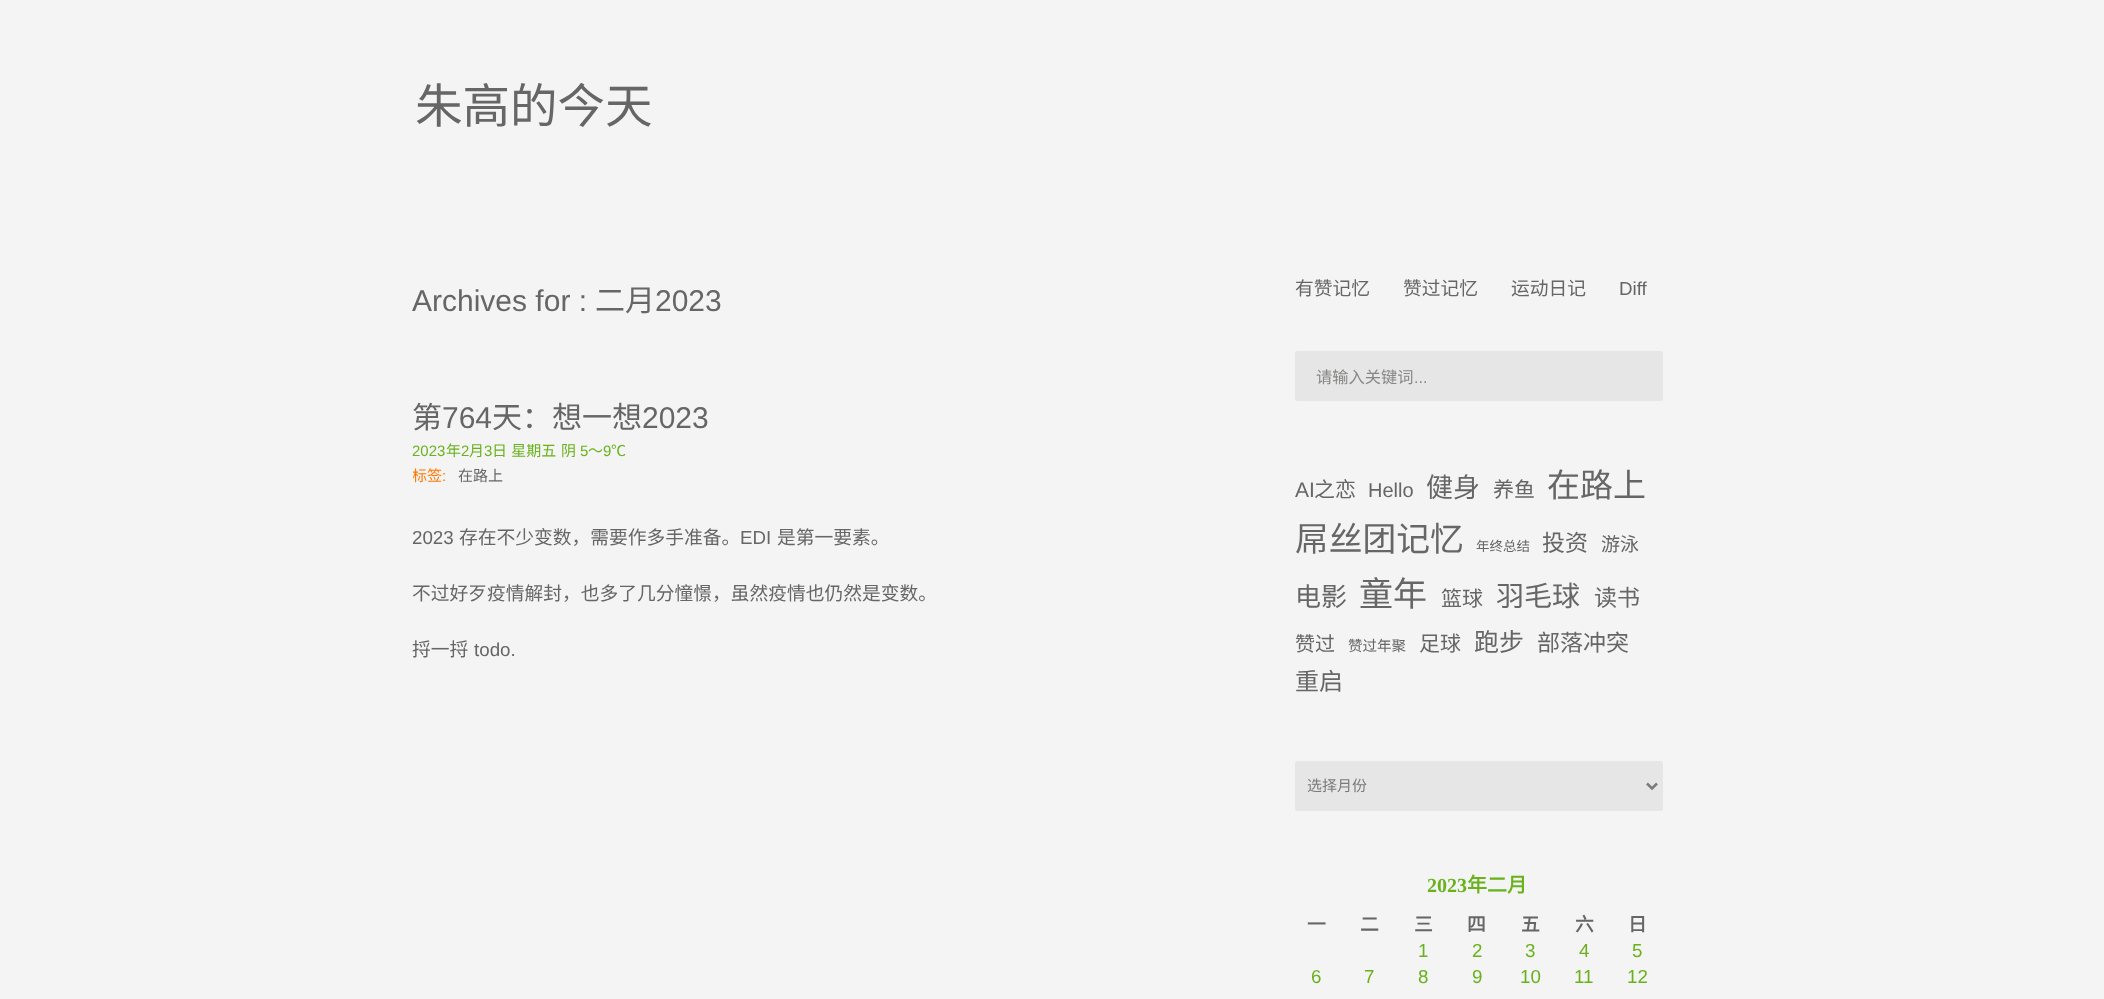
<svg xmlns="http://www.w3.org/2000/svg" width="2104" height="999" viewBox="0 0 2104 999">
  <defs>
    <clipPath id="clip1"><rect x="413" y="444" width="712" height="15"/></clipPath>
    <clipPath id="clip2"><rect x="413" y="464" width="791" height="21"/></clipPath>
  </defs>
  <rect width="100%" height="100%" fill="#f4f4f4"/>
  <text x="415" y="123" font-family="Noto Sans CJK SC" font-size="47.5" fill="#666666">朱高的今天</text>
  <text x="412" y="311" font-family="Liberation Sans" font-size="30" fill="#666666">Archives for :</text>
  <text x="595" y="311" font-family="Noto Sans CJK SC" font-size="30" fill="#666666">二月</text>
  <text x="655" y="311" font-family="Liberation Sans" font-size="30" fill="#666666">2023</text>
  <text x="412" y="428" font-family="Noto Sans CJK SC" font-size="30" fill="#666666">第</text>
  <text x="442" y="428" font-family="Liberation Sans" font-size="30" fill="#666666">764</text>
  <text x="492" y="428" font-family="Noto Sans CJK SC" font-size="30" fill="#666666">天：想一想</text>
  <text x="642" y="428" font-family="Liberation Sans" font-size="30" fill="#666666">2023</text>
  <text x="412" y="456" font-family="Liberation Sans" font-size="15" fill="#6ab21d">2023</text>
  <text x="446" y="456" font-family="Noto Sans CJK SC" font-size="15" fill="#6ab21d">年</text>
  <text x="461" y="456" font-family="Liberation Sans" font-size="15" fill="#6ab21d">2</text>
  <text x="469" y="456" font-family="Noto Sans CJK SC" font-size="15" fill="#6ab21d">月</text>
  <text x="484" y="456" font-family="Liberation Sans" font-size="15" fill="#6ab21d">3</text>
  <g clip-path="url(#clip1)">
    <text x="492" y="456" word-spacing="1" font-family="Noto Sans CJK SC" font-size="15" fill="#6ab21d">日 星期五</text>
  </g>
  <text x="561" y="456" font-family="Noto Sans CJK SC" font-size="15" fill="#6ab21d">阴</text>
  <text x="580" y="456" font-family="Liberation Sans" font-size="15" fill="#6ab21d">5</text>
  <text x="588" y="456" font-family="Noto Sans CJK SC" font-size="15" fill="#6ab21d">～</text>
  <text x="603" y="456" font-family="Liberation Sans" font-size="15" fill="#6ab21d">9</text>
  <text x="611" y="456" font-family="Noto Sans CJK SC" font-size="15" fill="#6ab21d">℃</text>
  <g clip-path="url(#clip2)">
    <text x="412" y="481" font-family="Noto Sans CJK SC" font-size="15" fill="#ff7700">标签</text>
  </g>
  <text x="442" y="481" font-family="Liberation Sans" font-size="15" fill="#ff7700">:</text>
  <text x="458" y="481" font-family="Noto Sans CJK SC" font-size="15" fill="#666666">在路上</text>
  <text x="412" y="544" font-family="Liberation Sans" font-size="18.75" fill="#666666">2023</text>
  <text x="459" y="544" font-family="Noto Sans CJK SC" font-size="18.75" fill="#666666">存在不少变数，需要作多手准备。</text>
  <text x="740" y="544" font-family="Liberation Sans" font-size="18.75" fill="#666666">EDI</text>
  <text x="777" y="544" font-family="Noto Sans CJK SC" font-size="18.75" fill="#666666">是第一要素。</text>
  <text x="412" y="600" font-family="Noto Sans CJK SC" font-size="18.75" fill="#666666">不过好歹疫情解封，也多了几分憧憬，虽然疫情也仍然是变数。</text>
  <text x="412" y="656" font-family="Noto Sans CJK SC" font-size="18.75" fill="#666666">捋一捋</text>
  <text x="474" y="656" font-family="Liberation Sans" font-size="18.75" fill="#666666">todo.</text>
  <text x="1295" y="295" font-family="Noto Sans CJK SC" font-size="18.75" fill="#666666">有赞记忆</text>
  <text x="1403" y="295" font-family="Noto Sans CJK SC" font-size="18.75" fill="#666666">赞过记忆</text>
  <text x="1511" y="295" font-family="Noto Sans CJK SC" font-size="18.75" fill="#666666">运动日记</text>
  <text x="1619" y="295" font-family="Liberation Sans" font-size="18.75" fill="#666666">Diff</text>
  <rect x="1295" y="351" width="368" height="50" rx="2.5" fill="#e6e6e6"/>
  <text x="1316" y="383" font-family="Noto Sans CJK SC" font-size="16.25" fill="#878786">请输入关键词</text>
  <text x="1414" y="383" font-family="Liberation Sans" font-size="16.25" fill="#878786">...</text>
  <text x="1295" y="497" font-family="Liberation Sans" font-size="21" fill="#666666">AI</text>
  <text x="1314" y="497" font-family="Noto Sans CJK SC" font-size="21" fill="#666666">之恋</text>
  <text x="1368" y="497" font-family="Liberation Sans" font-size="20" fill="#666666">Hello</text>
  <text x="1426" y="497" font-family="Noto Sans CJK SC" font-size="27" fill="#666666">健身</text>
  <text x="1493" y="497" font-family="Noto Sans CJK SC" font-size="21" fill="#666666">养鱼</text>
  <text x="1547" y="497" font-family="Noto Sans CJK SC" font-size="33" fill="#666666">在路上</text>
  <text x="1295" y="551" font-family="Noto Sans CJK SC" font-size="33.75" fill="#666666">屌丝团记忆</text>
  <text x="1476" y="551" font-family="Noto Sans CJK SC" font-size="13.5" fill="#666666">年终总结</text>
  <text x="1542" y="551" font-family="Noto Sans CJK SC" font-size="23" fill="#666666">投资</text>
  <text x="1601" y="551" font-family="Noto Sans CJK SC" font-size="19" fill="#666666">游泳</text>
  <text x="1295" y="606" font-family="Noto Sans CJK SC" font-size="26" fill="#666666">电影</text>
  <text x="1359" y="606" font-family="Noto Sans CJK SC" font-size="34" fill="#666666">童年</text>
  <text x="1441" y="606" font-family="Noto Sans CJK SC" font-size="21" fill="#666666">篮球</text>
  <text x="1496" y="606" font-family="Noto Sans CJK SC" font-size="28" fill="#666666">羽毛球</text>
  <text x="1594" y="606" font-family="Noto Sans CJK SC" font-size="23" fill="#666666">读书</text>
  <text x="1295" y="651" font-family="Noto Sans CJK SC" font-size="20" fill="#666666">赞过</text>
  <text x="1348" y="651" font-family="Noto Sans CJK SC" font-size="14.5" fill="#666666">赞过年聚</text>
  <text x="1419" y="651" font-family="Noto Sans CJK SC" font-size="21" fill="#666666">足球</text>
  <text x="1474" y="651" font-family="Noto Sans CJK SC" font-size="25" fill="#666666">跑步</text>
  <text x="1537" y="651" font-family="Noto Sans CJK SC" font-size="23" fill="#666666">部落冲突</text>
  <text x="1295" y="690" font-family="Noto Sans CJK SC" font-size="24" fill="#666666">重启</text>
  <rect x="1295" y="761" width="368" height="50" rx="2.5" fill="#e6e6e6"/>
  <path d="M1647 783.5L1652 788.5L1657 783.5" fill="none" stroke="#7a7a7a" stroke-width="2.5"/>
  <text x="1307" y="791" font-family="Noto Sans CJK SC" font-size="15" fill="#7a7a7a">选择月份</text>
  <text x="1427" y="892" font-family="Liberation Serif" font-size="20" font-weight="bold" fill="#6ab21d">2023</text>
  <text x="1467" y="892" font-family="Noto Sans CJK SC" font-size="20" font-weight="bold" fill="#6ab21d">年二月</text>
  <text x="1307" y="931" font-family="Noto Sans CJK SC" font-size="18.75" font-weight="bold" fill="#666666">一</text>
  <text x="1360" y="931" font-family="Noto Sans CJK SC" font-size="18.75" font-weight="bold" fill="#666666">二</text>
  <text x="1414" y="931" font-family="Noto Sans CJK SC" font-size="18.75" font-weight="bold" fill="#666666">三</text>
  <text x="1467" y="931" font-family="Noto Sans CJK SC" font-size="18.75" font-weight="bold" fill="#666666">四</text>
  <text x="1521" y="931" font-family="Noto Sans CJK SC" font-size="18.75" font-weight="bold" fill="#666666">五</text>
  <text x="1575" y="931" font-family="Noto Sans CJK SC" font-size="18.75" font-weight="bold" fill="#666666">六</text>
  <text x="1628" y="931" font-family="Noto Sans CJK SC" font-size="18.75" font-weight="bold" fill="#666666">日</text>
  <text x="1418" y="957" font-family="Liberation Sans" font-size="18.75" fill="#6ab21d">1</text>
  <text x="1472" y="957" font-family="Liberation Sans" font-size="18.75" fill="#6ab21d">2</text>
  <text x="1525" y="957" font-family="Liberation Sans" font-size="18.75" fill="#6ab21d">3</text>
  <text x="1579" y="957" font-family="Liberation Sans" font-size="18.75" fill="#6ab21d">4</text>
  <text x="1632" y="957" font-family="Liberation Sans" font-size="18.75" fill="#6ab21d">5</text>
  <text x="1311" y="983" font-family="Liberation Sans" font-size="18.75" fill="#6ab21d">6</text>
  <text x="1364" y="983" font-family="Liberation Sans" font-size="18.75" fill="#6ab21d">7</text>
  <text x="1418" y="983" font-family="Liberation Sans" font-size="18.75" fill="#6ab21d">8</text>
  <text x="1472" y="983" font-family="Liberation Sans" font-size="18.75" fill="#6ab21d">9</text>
  <text x="1520" y="983" font-family="Liberation Sans" font-size="18.75" fill="#6ab21d">10</text>
  <text x="1574" y="983" font-family="Liberation Sans" font-size="18.75" fill="#6ab21d">11</text>
  <text x="1627" y="983" font-family="Liberation Sans" font-size="18.75" fill="#6ab21d">12</text>
</svg>
